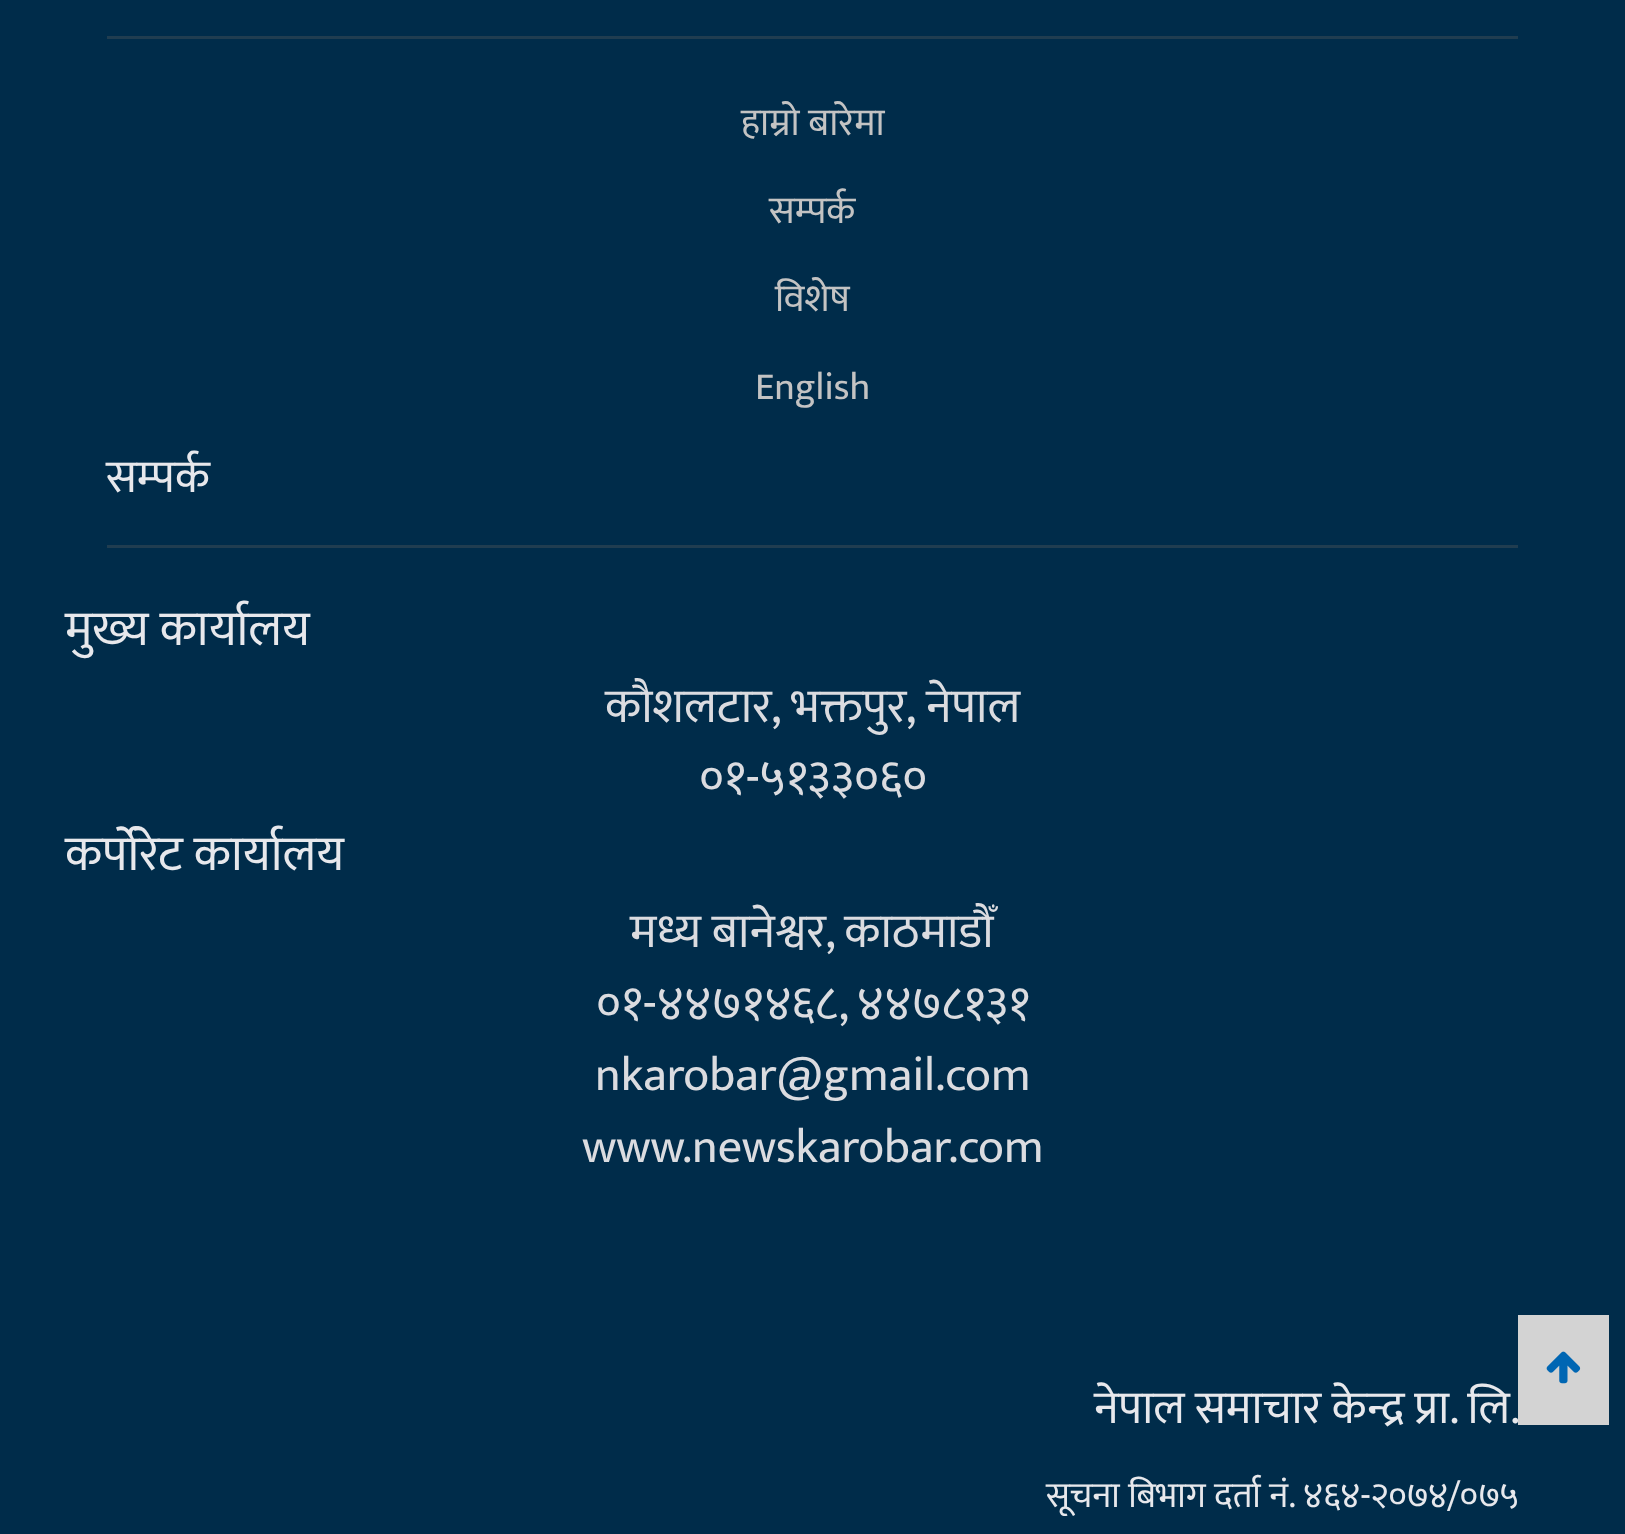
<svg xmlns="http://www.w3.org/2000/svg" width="1625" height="1534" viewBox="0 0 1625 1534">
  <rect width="100%" height="100%" fill="#002c4a"/>
  <rect x="107" y="36" width="1411" height="3" fill="#203d50"/>
  <text x="741" y="135" font-family="Ek Mukta" font-size="38.5" fill="#c3c3c3">हाम्राे बारेमा</text>
  <text x="769" y="223" font-family="Ek Mukta" font-size="38.5" fill="#c3c3c3">सम्पर्क</text>
  <text x="775" y="311" font-family="Ek Mukta" font-size="38.5" fill="#c3c3c3">विशेष</text>
  <text x="755" y="399" font-family="Ek Mukta" font-size="38.5" fill="#c3c3c3">English</text>
  <rect x="107" y="545" width="1411" height="3" fill="#203d50"/>
  <text x="106" y="492" font-family="Ek Mukta" font-size="46.25" fill="#e7e8ec">सम्पर्क</text>
  <text x="65" y="645" font-family="Ek Mukta" font-size="49.5" fill="#e7e8ec">मुख्य कार्यालय</text>
  <text x="605" y="722" word-spacing="1" font-family="Ek Mukta" font-size="48.1" fill="#dbdce0">कौशलटार, भक्तपुर, नेपाल</text>
  <text x="699" y="793" font-family="Ek Mukta" font-size="48.1" fill="#dbdce0">०१-५१३३०६०</text>
  <text x="65" y="870" font-family="Ek Mukta" font-size="49.5" fill="#e7e8ec">कर्पाेरेट कार्यालय</text>
  <text x="630" y="947" font-family="Ek Mukta" font-size="48.1" fill="#dbdce0">मध्य बानेश्वर, काठमाडौँ</text>
  <text x="596" y="1019" word-spacing="-1" font-family="Ek Mukta" font-size="48.1" fill="#dbdce0">०१-४४७१४६८, ४४७८१३१</text>
  <text x="595" y="1090" font-family="Ek Mukta" font-size="48.1" fill="#dbdce0">nkarobar@gmail.com</text>
  <text x="582" y="1162" font-family="Ek Mukta" font-size="48.1" fill="#dbdce0">www.newskarobar.com</text>
  <text x="1094" y="1423" font-family="Ek Mukta" font-size="46.25" fill="#e7e8ec">नेपाल समाचार केन्द्र प्रा. लि.</text>
  <text x="1046" y="1507" word-spacing="0.5" font-family="Ek Mukta" font-size="35.75" fill="#e7e8ec">सूचना बिभाग दर्ता नं. ४६४-२०७४/०७५</text>
  <rect x="1518" y="1315" width="91" height="110" fill="#d3d3d3"/>
  <image x="1546" y="1351" width="35" height="33" href="img1.png"/>
</svg>
